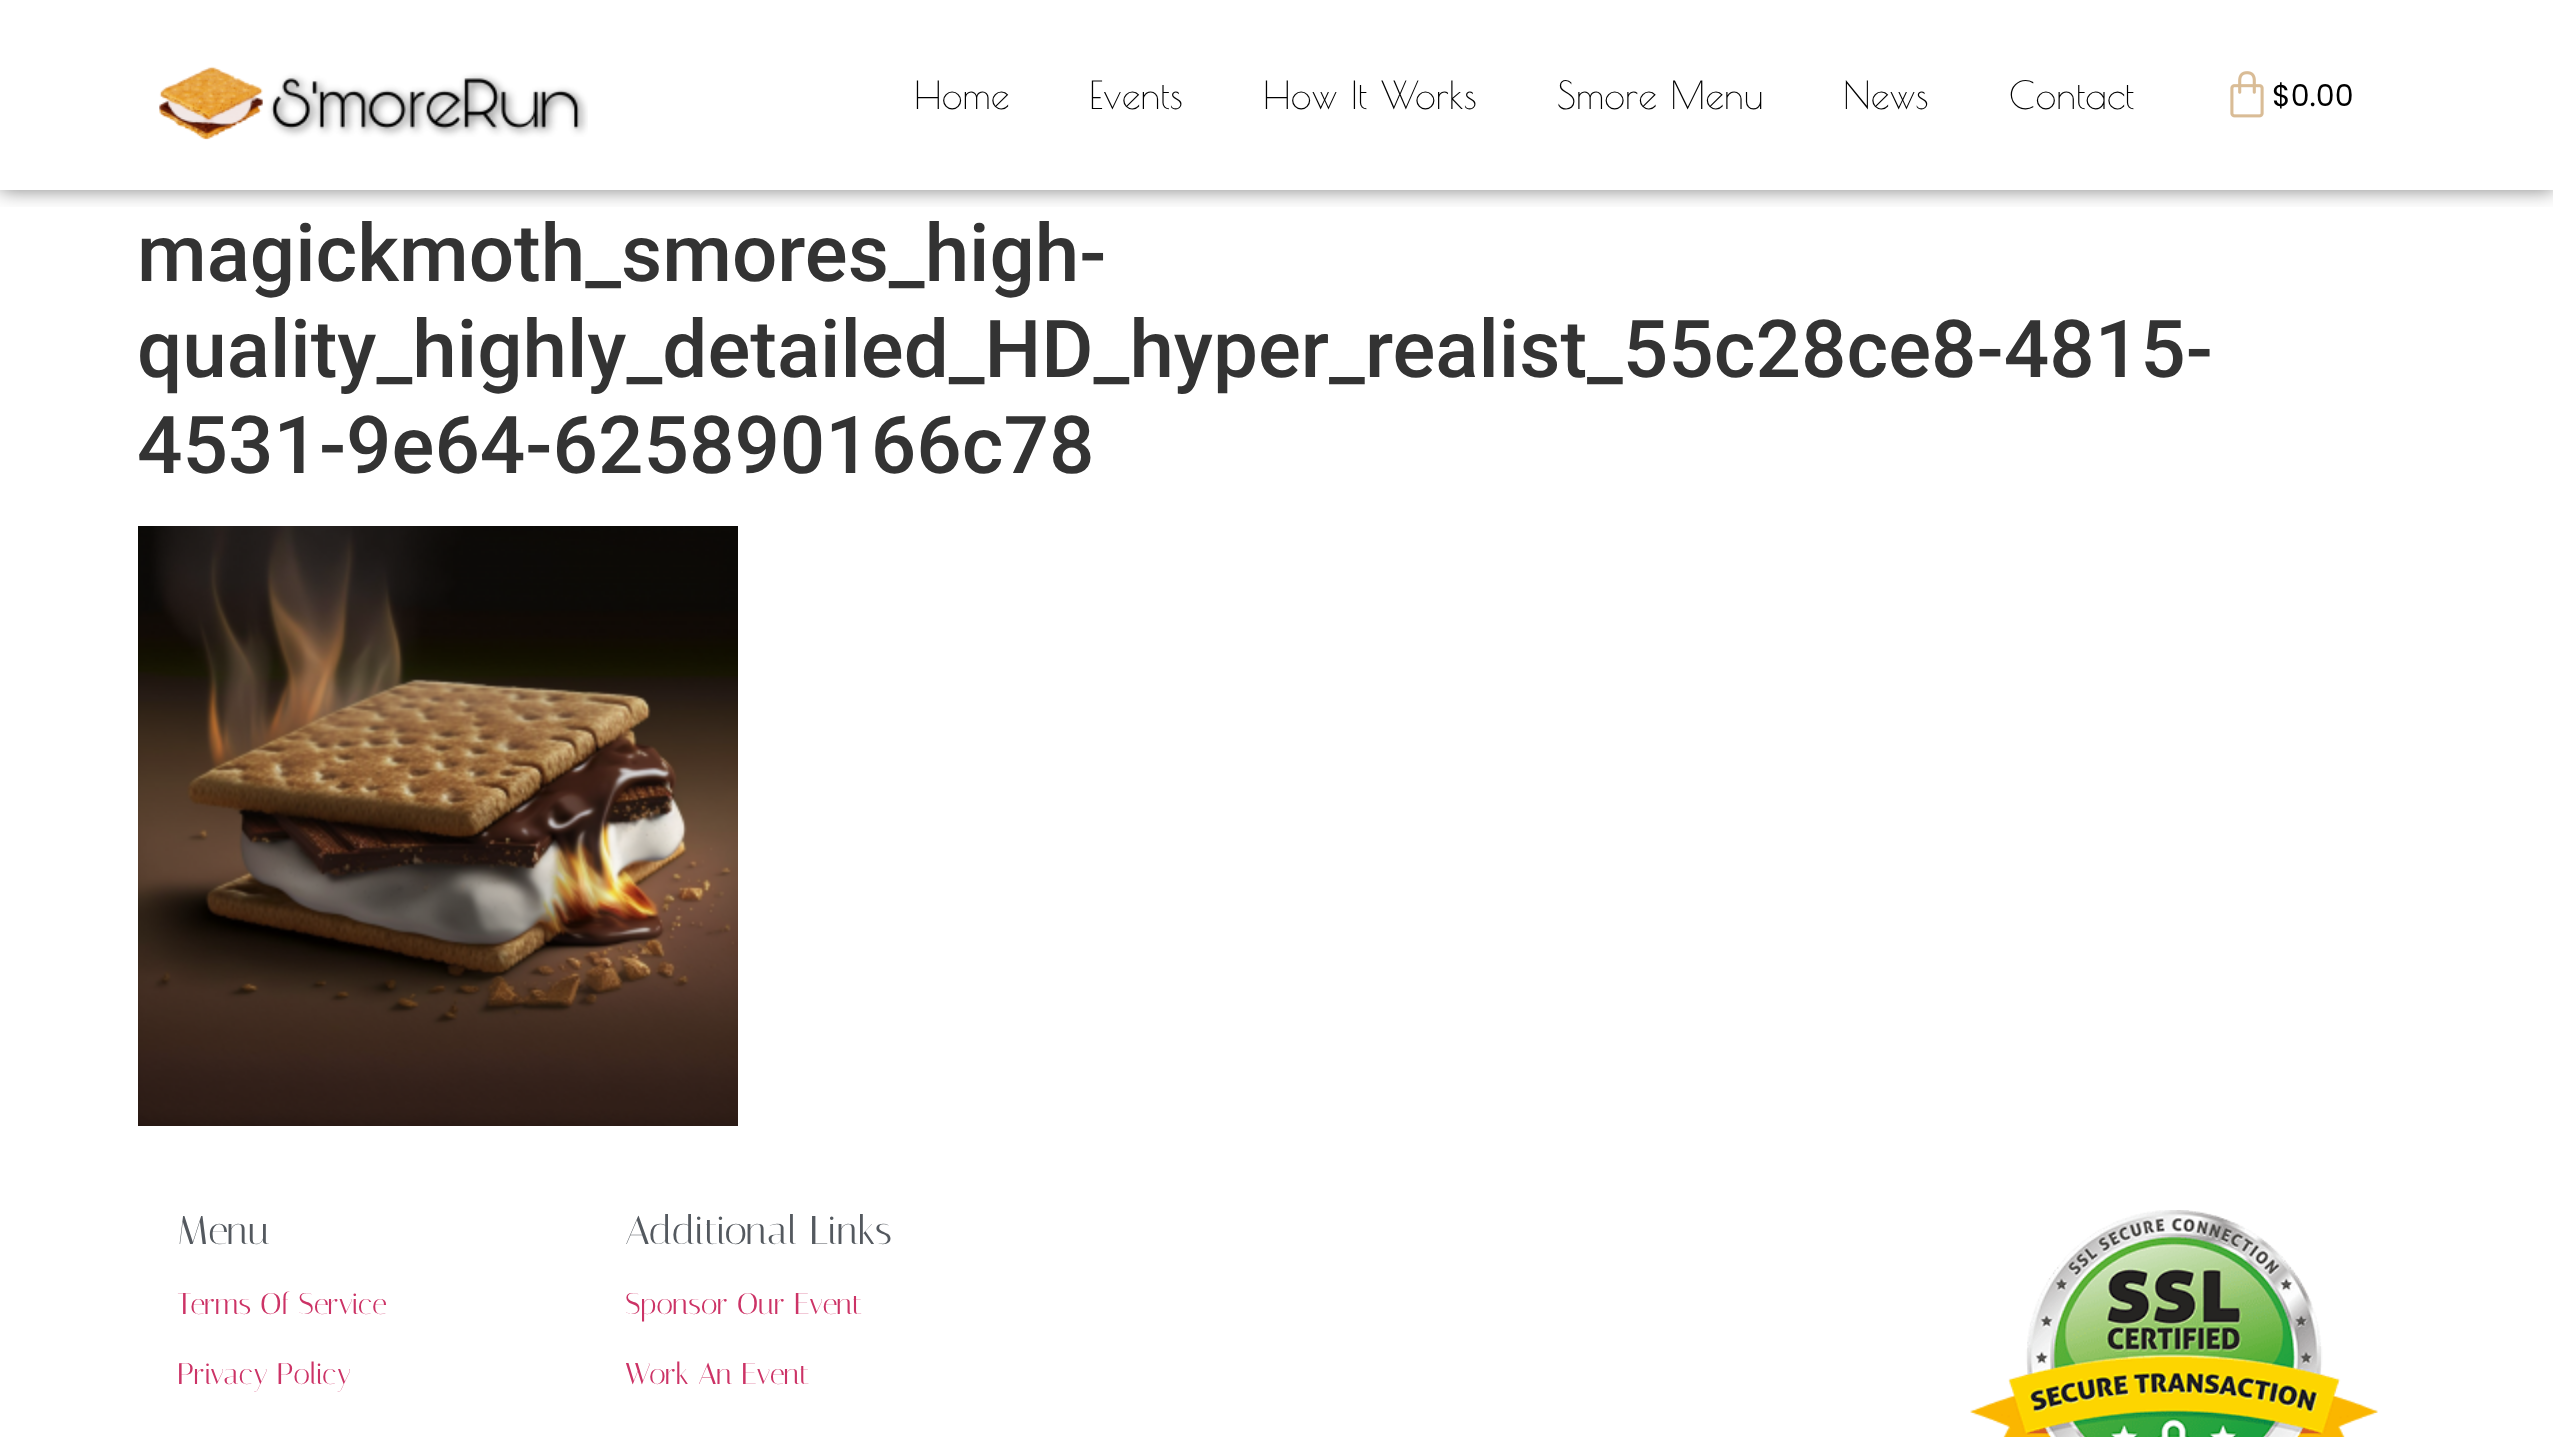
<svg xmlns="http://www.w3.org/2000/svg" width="2553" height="1437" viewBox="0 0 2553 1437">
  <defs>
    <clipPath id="clip1"><rect x="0" y="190" width="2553" height="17"/></clipPath>
    <filter id="blur1" x="-50%" y="-200%" width="200%" height="500%"><feGaussianBlur stdDeviation="10"/></filter>
  </defs>
  <rect width="100%" height="100%" fill="#ffffff"/>
  <g clip-path="url(#clip1)">
    <rect x="0" y="0" width="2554" height="190" fill="#000000" fill-opacity="0.5" filter="url(#blur1)"/>
  </g>
  <image x="159" y="66" width="429" height="74" href="img1.png"/>
  <text x="914" y="109" font-family="Poiret One" font-size="38" fill="#000000">Home</text>
  <text x="1089" y="109" font-family="Poiret One" font-size="38" fill="#000000">Events</text>
  <text x="1263" y="109" font-family="Poiret One" font-size="38" fill="#000000">How It Works</text>
  <text x="1557" y="109" font-family="Poiret One" font-size="38" fill="#000000">Smore Menu</text>
  <text x="1843" y="109" font-family="Poiret One" font-size="38" fill="#000000">News</text>
  <text x="2009" y="109" font-family="Poiret One" font-size="38" fill="#000000">Contact</text>
  <image x="2230" y="71" width="34" height="47" href="img2.png"/>
  <text x="2272" y="106" font-family="Poppins" font-size="30" fill="#000000">$0.00</text>
  <text x="137" y="281" font-family="Roboto" font-size="80" font-weight="500" fill="#333333">magickmoth_smores_high-</text>
  <text x="137" y="377" font-family="Roboto" font-size="80" font-weight="500" fill="#333333">quality_highly_detailed_HD_hyper_realist_55c28ce8-4815-</text>
  <text x="137" y="473" font-family="Roboto" font-size="80" font-weight="500" fill="#333333">4531-9e64-625890166c78</text>
  <image x="138" y="526" width="600" height="600" href="img3.png"/>
  <text x="177" y="1244" font-family="Italiana" font-size="40" fill="#54595f">Menu</text>
  <text x="177" y="1314" font-family="Italiana" font-size="30" fill="#cc3366">Terms Of Service</text>
  <text x="177" y="1384" font-family="Italiana" font-size="30" fill="#cc3366">Privacy Policy</text>
  <text x="625" y="1244" font-family="Italiana" font-size="40" fill="#54595f">Additional Links</text>
  <text x="625" y="1314" font-family="Italiana" font-size="30" fill="#cc3366">Sponsor Our Event</text>
  <text x="625" y="1384" font-family="Italiana" font-size="30" fill="#cc3366">Work An Event</text>
  <image x="1970" y="1210" width="408" height="227" href="img4.png"/>
</svg>
